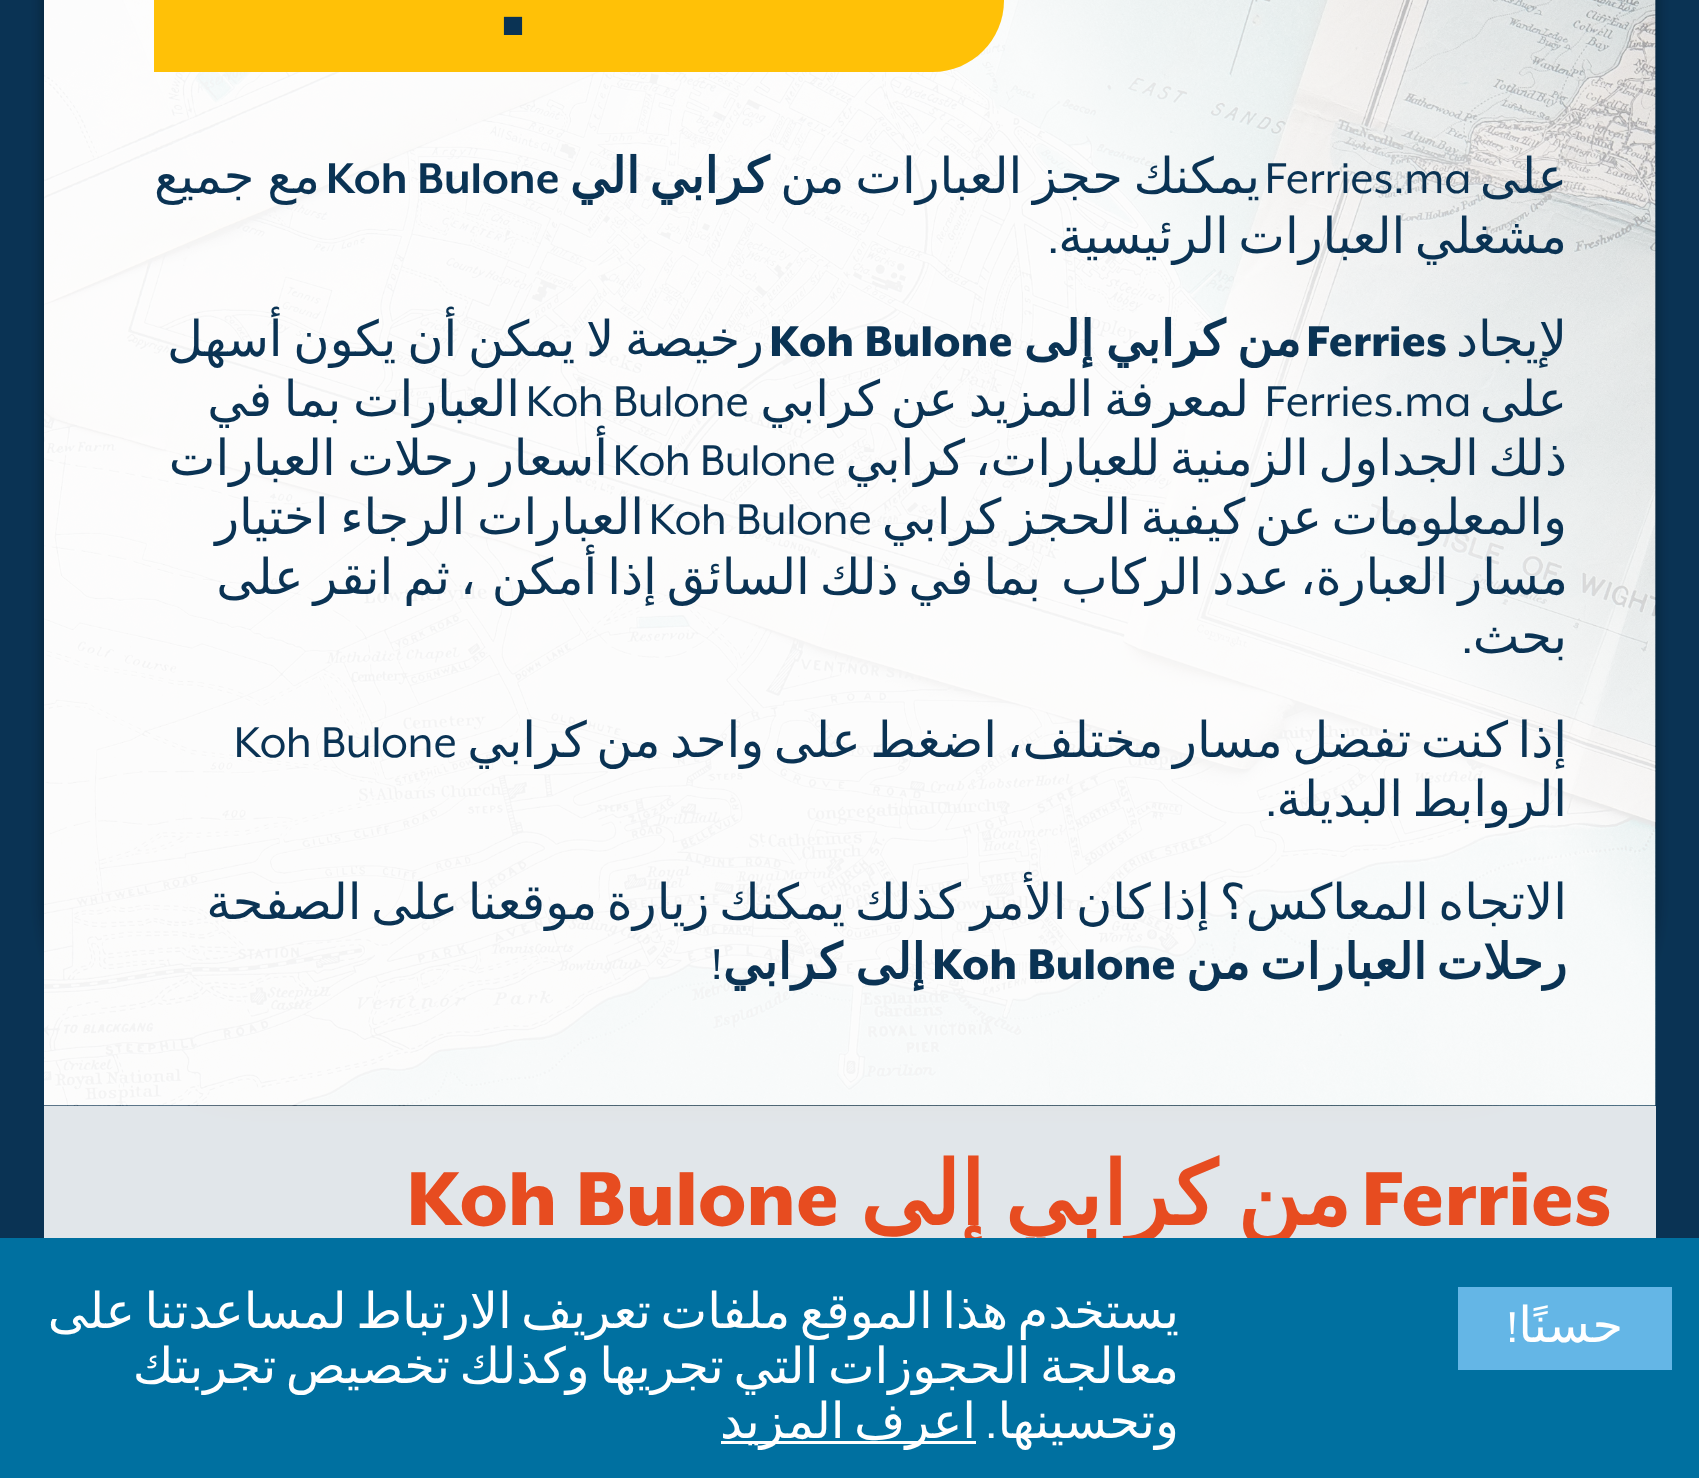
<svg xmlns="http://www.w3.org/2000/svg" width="1699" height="1478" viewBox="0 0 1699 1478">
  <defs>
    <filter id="blur1" x="-50%" y="-200%" width="200%" height="500%"><feGaussianBlur stdDeviation="8"/></filter>
  </defs>
  <rect width="100%" height="100%" fill="#0a3354"/>
  <rect x="44" y="-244" width="1612" height="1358" rx="220" fill="#000000" fill-opacity="0.23" filter="url(#blur1)"/>
  <rect x="44" y="-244" width="1612" height="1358" rx="220" fill="#000000" fill-opacity="0.16" filter="url(#blur1)"/>
  <image x="44" y="0" width="1612" height="1106" href="img1.png"/>
  <rect x="154" y="0" width="547" height="72" fill="#ffc107"/>
  <text x="498" y="35" font-family="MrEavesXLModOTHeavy" font-size="121" font-weight="900" fill="#0a3354">.</text>
  <path d="M701-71H932.5C972-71 1004-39 1004 .5C1004 40 972 72 932.5 72H701Z" fill="#ffc107"/>
  <text x="1567" y="193" font-family="DejaVu Sans" font-size="49.5" direction="rtl" fill="#0a3354">على</text>
  <text x="1260" y="193" word-spacing="-5" font-family="DejaVu Sans" font-size="49.5" direction="rtl" fill="#0a3354">يمكنك حجز العبارات من</text>
  <text x="1265" y="193" font-family="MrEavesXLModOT" font-size="49.5" fill="#0a3354">Ferries.ma</text>
  <text x="769" y="193" word-spacing="-6" font-family="DejaVu Sans" font-size="49.5" font-weight="bold" direction="rtl" fill="#0a3354">كرابي الي</text>
  <text x="326" y="193" font-family="MrEavesXLModOT" font-size="49.5" font-weight="bold" fill="#0a3354">Koh Bulone</text>
  <text x="320" y="193" word-spacing="-3" font-family="DejaVu Sans" font-size="49.5" direction="rtl" fill="#0a3354">مع جميع</text>
  <text x="1567" y="253" word-spacing="-6.25" font-family="DejaVu Sans" font-size="49.5" direction="rtl" fill="#0a3354">مشغلي العبارات الرئيسية</text>
  <text x="1059" y="253" font-family="MrEavesXLModOT" font-size="49.5" direction="rtl" fill="#0a3354">.</text>
  <text x="1567" y="356" font-family="DejaVu Sans" font-size="49.5" direction="rtl" fill="#0a3354">لإيجاد</text>
  <text x="1306" y="356" font-family="MrEavesXLModOTHeavy" font-size="49.5" font-weight="900" fill="#0a3354">Ferries</text>
  <text x="1301" y="356" word-spacing="-4" font-family="DejaVu Sans" font-size="49.5" font-weight="bold" direction="rtl" fill="#0a3354">من كرابي إلى</text>
  <text x="769" y="356" font-family="MrEavesXLModOTHeavy" font-size="49.5" font-weight="900" fill="#0a3354">Koh Bulone</text>
  <text x="764" y="356" word-spacing="-5" font-family="DejaVu Sans" font-size="49.5" direction="rtl" fill="#0a3354">رخيصة لا يمكن أن يكون أسهل</text>
  <text x="1567" y="416" font-family="DejaVu Sans" font-size="49.5" direction="rtl" fill="#0a3354">على</text>
  <text x="1265" y="416" font-family="MrEavesXLModOT" font-size="49.5" fill="#0a3354">Ferries.ma</text>
  <text x="1249" y="416" word-spacing="-5" font-family="DejaVu Sans" font-size="49.5" direction="rtl" fill="#0a3354">لمعرفة المزيد عن كرابي</text>
  <text x="526" y="416" font-family="MrEavesXLModOT" font-size="49.5" fill="#0a3354">Koh Bulone</text>
  <text x="520" y="416" word-spacing="-4" font-family="DejaVu Sans" font-size="49.5" direction="rtl" fill="#0a3354">العبارات بما في</text>
  <text x="1567" y="475" word-spacing="-6.25" font-family="DejaVu Sans" font-size="49.5" direction="rtl" fill="#0a3354">ذلك الجداول الزمنية للعبارات، كرابي</text>
  <text x="613" y="475" font-family="MrEavesXLModOT" font-size="49.5" fill="#0a3354">Koh Bulone</text>
  <text x="608" y="475" word-spacing="-4" font-family="DejaVu Sans" font-size="49.5" direction="rtl" fill="#0a3354">أسعار رحلات العبارات</text>
  <text x="1567" y="534" word-spacing="-6.25" font-family="DejaVu Sans" font-size="49.5" direction="rtl" fill="#0a3354">والمعلومات عن كيفية الحجز كرابي</text>
  <text x="649" y="534" font-family="MrEavesXLModOT" font-size="49.5" fill="#0a3354">Koh Bulone</text>
  <text x="644" y="534" word-spacing="-4" font-family="DejaVu Sans" font-size="49.5" direction="rtl" fill="#0a3354">العبارات الرجاء اختيار</text>
  <text x="1568" y="594" word-spacing="-5.75" font-family="DejaVu Sans" font-size="49.5" direction="rtl" fill="#0a3354">مسار العبارة، عدد الركاب</text>
  <text x="1041" y="594" word-spacing="-5.75" font-family="DejaVu Sans" font-size="49.5" direction="rtl" fill="#0a3354">بما في ذلك السائق إذا أمكن</text>
  <text x="476" y="594" word-spacing="-5.75" font-family="DejaVu Sans" font-size="49.5" direction="rtl" fill="#0a3354">، ثم انقر على</text>
  <text x="1567" y="653" font-family="DejaVu Sans" font-size="49.5" direction="rtl" fill="#0a3354">بحث</text>
  <text x="1473" y="653" font-family="MrEavesXLModOT" font-size="49.5" direction="rtl" fill="#0a3354">.</text>
  <text x="1567" y="757" word-spacing="-6.25" font-family="DejaVu Sans" font-size="49.5" direction="rtl" fill="#0a3354">إذا كنت تفضل مسار مختلف، اضغط على واحد من كرابي</text>
  <text x="234" y="757" font-family="MrEavesXLModOT" font-size="49.5" fill="#0a3354">Koh Bulone</text>
  <text x="1567" y="816" word-spacing="-6.25" font-family="DejaVu Sans" font-size="49.5" direction="rtl" fill="#0a3354">الروابط البديلة</text>
  <text x="1277" y="816" font-family="MrEavesXLModOT" font-size="49.5" direction="rtl" fill="#0a3354">.</text>
  <text x="1567" y="919" word-spacing="-6.25" font-family="DejaVu Sans" font-size="49.5" direction="rtl" fill="#0a3354">الاتجاه المعاكس؟ إذا كان الأمر كذلك يمكنك زيارة موقعنا على الصفحة</text>
  <text x="1567" y="979" word-spacing="-6" font-family="DejaVu Sans" font-size="49.5" font-weight="bold" direction="rtl" fill="#0a3354">رحلات العبارات من</text>
  <text x="932" y="979" font-family="MrEavesXLModOTHeavy" font-size="49.5" font-weight="900" fill="#0a3354">Koh Bulone</text>
  <text x="925" y="979" word-spacing="-3" font-family="DejaVu Sans" font-size="49.5" font-weight="bold" direction="rtl" fill="#0a3354">إلى كرابي</text>
  <text x="711" y="979" font-family="MrEavesXLModOT" font-size="49.5" fill="#0a3354">!</text>
  <rect x="44" y="1106" width="1612" height="132" fill="#ffffff" fill-opacity="0.88"/>
  <text x="1361" y="1225" font-family="MrEavesXLModOTHeavy" font-size="88" font-weight="900" fill="#e74c20">Ferries</text>
  <text x="1351" y="1225" word-spacing="-8" font-family="DejaVu Sans" font-size="88" font-weight="bold" direction="rtl" fill="#e74c20">من كرابي إلى</text>
  <text x="406" y="1225" font-family="MrEavesXLModOTHeavy" font-size="88" font-weight="900" fill="#e74c20">Koh Bulone</text>
  <rect x="0" y="1238" width="1699" height="240" fill="#0070a0"/>
  <rect x="1458" y="1287" width="214" height="83" fill="#64b6e6"/>
  <text x="1623" y="1342" font-family="DejaVu Sans" font-size="49.5" direction="rtl" fill="#ffffff">حسنًا</text>
  <text x="1518" y="1342" font-family="MrEavesXLModOT" font-size="49.5" direction="rtl" fill="#ffffff">!</text>
  <text x="1179" y="1328" word-spacing="-6.25" font-family="DejaVu Sans" font-size="49.5" direction="rtl" fill="#ffffff">يستخدم هذا الموقع ملفات تعريف الارتباط لمساعدتنا على</text>
  <text x="1179" y="1383" word-spacing="-6.25" font-family="DejaVu Sans" font-size="49.5" direction="rtl" fill="#ffffff">معالجة الحجوزات التي تجريها وكذلك تخصيص تجربتك</text>
  <text x="1179" y="1438" font-family="DejaVu Sans" font-size="49.5" direction="rtl" fill="#ffffff">وتحسينها</text>
  <text x="997" y="1438" font-family="MrEavesXLModOT" font-size="49.5" direction="rtl" fill="#ffffff">.</text>
  <rect x="721" y="1441" width="255" height="3" fill="#ffffff"/>
  <text x="976" y="1438" word-spacing="-6.25" font-family="DejaVu Sans" font-size="49.5" direction="rtl" fill="#ffffff">اعرف المزيد</text>
</svg>
